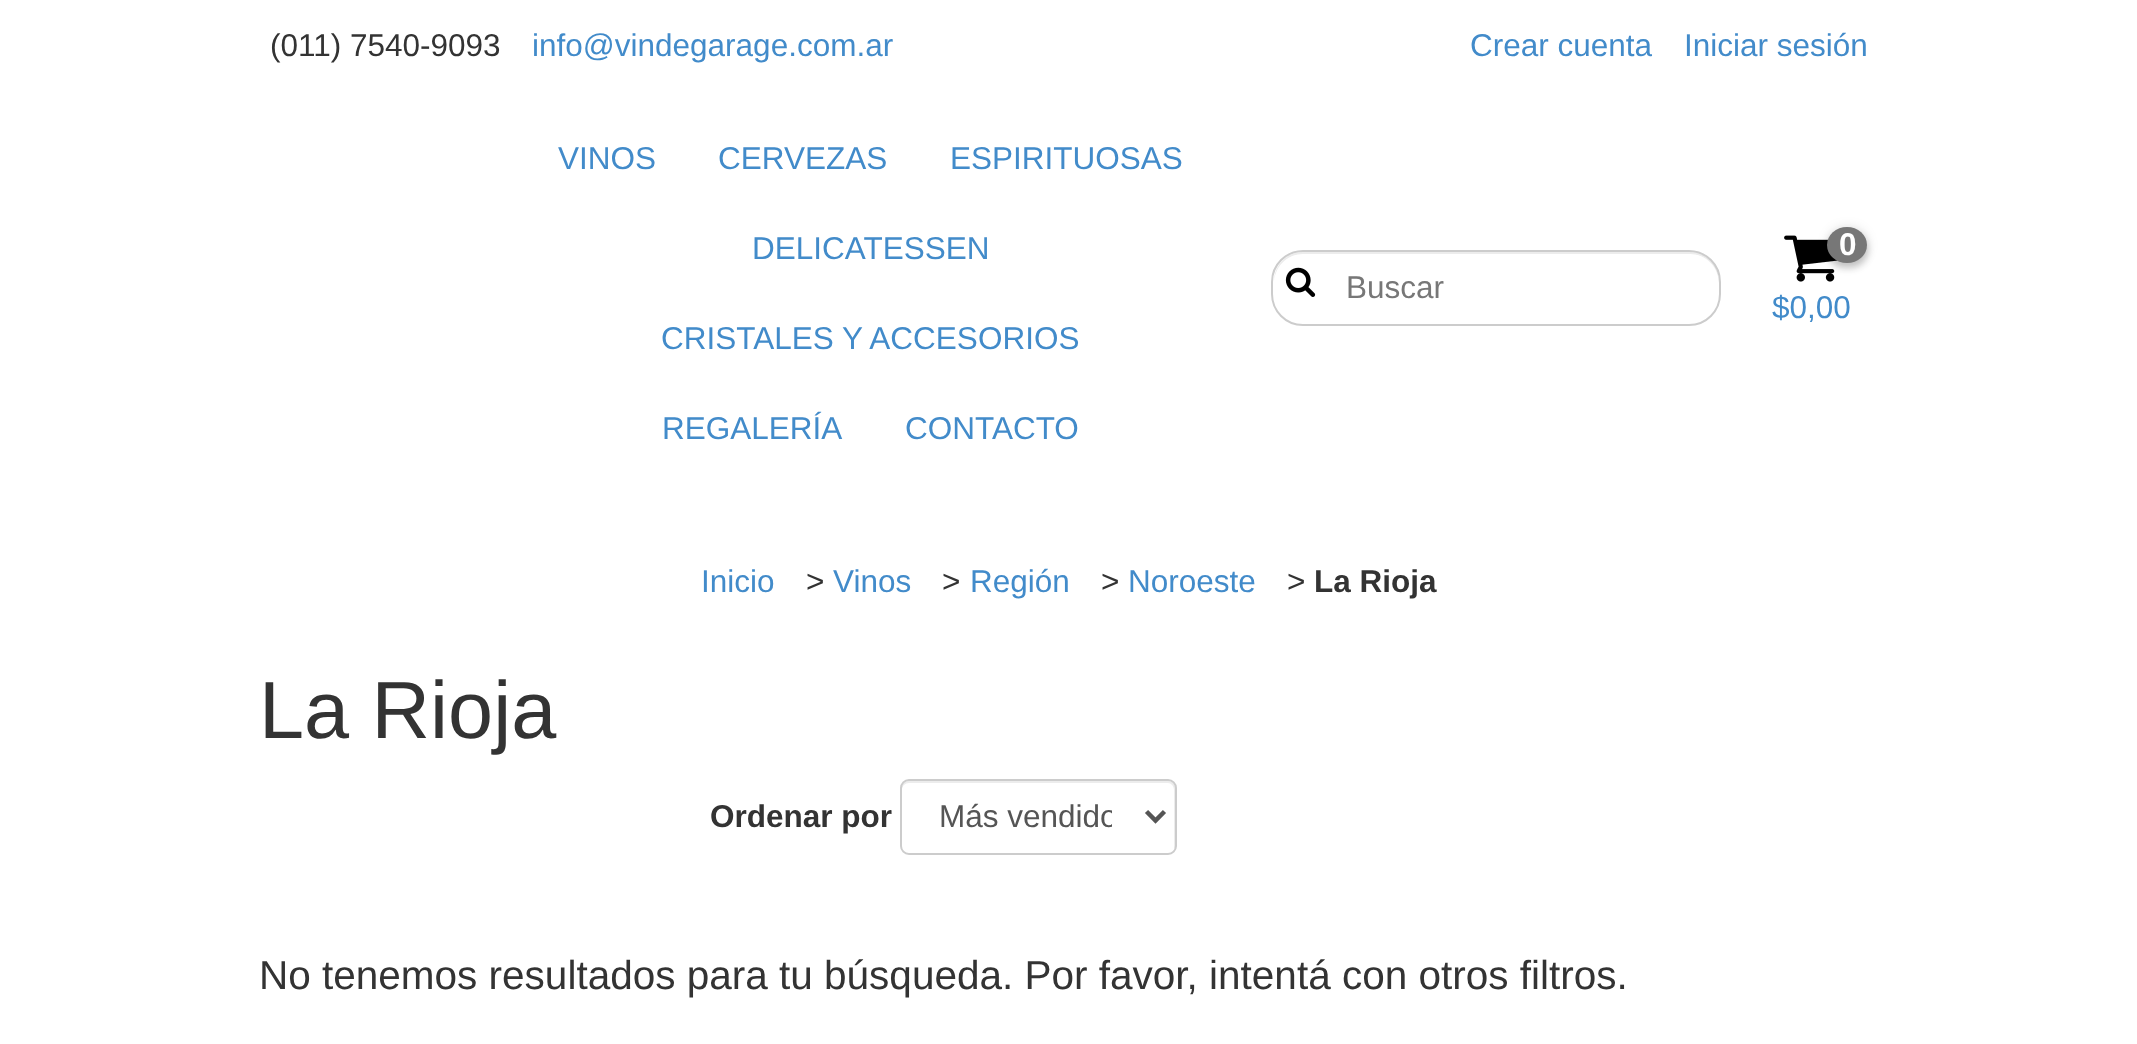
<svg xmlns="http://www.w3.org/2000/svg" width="2137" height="1044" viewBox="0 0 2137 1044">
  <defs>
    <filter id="blur1" x="-50%" y="-200%" width="200%" height="500%"><feGaussianBlur stdDeviation="3.5"/></filter>
    <filter id="blur2" x="-50%" y="-200%" width="200%" height="500%"><feGaussianBlur stdDeviation="5.5"/></filter>
    <clipPath id="clip1"><rect x="938" y="797" width="174" height="40"/></clipPath>
  </defs>
  <rect width="100%" height="100%" fill="#ffffff"/>
  <text x="270" y="56" font-family="Liberation Sans" font-size="31.5" fill="#333333">(011) 7540-9093</text>
  <text x="532" y="56" font-family="Liberation Sans" font-size="31.5" fill="#428bca">info@vindegarage.com.ar</text>
  <text x="1470" y="56" font-family="Liberation Sans" font-size="31.5" fill="#428bca">Crear cuenta</text>
  <text x="1684" y="56" font-family="Liberation Sans" font-size="31.5" fill="#428bca">Iniciar sesión</text>
  <text x="558" y="169" font-family="Liberation Sans" font-size="31.5" fill="#428bca">VINOS</text>
  <text x="718" y="169" font-family="Liberation Sans" font-size="31.5" fill="#428bca">CERVEZAS</text>
  <text x="950" y="169" font-family="Liberation Sans" font-size="31.5" fill="#428bca">ESPIRITUOSAS</text>
  <text x="752" y="259" font-family="Liberation Sans" font-size="31.5" fill="#428bca">DELICATESSEN</text>
  <text x="661" y="349" font-family="Liberation Sans" font-size="31.5" fill="#428bca">CRISTALES Y ACCESORIOS</text>
  <text x="662" y="439" font-family="Liberation Sans" font-size="31.5" fill="#428bca">REGALERÍA</text>
  <text x="905" y="439" font-family="Liberation Sans" font-size="31.5" fill="#428bca">CONTACTO</text>
  <path d="M1303 254H1690C1706 254 1719 267 1719 284V281C1719 265 1706 252 1690 252H1303C1287 252 1274 265 1274 281V284C1274 267 1287 254 1303 254Z" fill="#ececec"/>
  <rect x="1272" y="251" width="448" height="74" rx="31" fill="none" stroke="#cccccc" stroke-width="2"/>
  <image x="1285" y="267" width="31" height="30" href="img1.png"/>
  <text x="1346" y="298" font-family="Liberation Sans" font-size="31.5" fill="#777777">Buscar</text>
  <image x="1784" y="235" width="54" height="47" href="img2.png"/>
  <rect x="1827" y="232" width="41" height="36" rx="18" fill="#000000" fill-opacity="0.2" filter="url(#blur1)"/>
  <rect x="1827" y="227" width="41" height="36" rx="18" fill="#000000" fill-opacity="0.1" filter="url(#blur2)"/>
  <ellipse cx="1847" cy="245" rx="20" ry="18" fill="#777777"/>
  <text x="1839" y="255" font-family="Liberation Sans" font-size="31.5" font-weight="bold" fill="#ffffff">0</text>
  <text x="1772" y="318" font-family="Liberation Sans" font-size="31.5" fill="#428bca">$0,00</text>
  <text x="701" y="592" font-family="Liberation Sans" font-size="31.5" fill="#428bca">Inicio</text>
  <text x="806" y="592" font-family="Liberation Sans" font-size="31.5" fill="#333333">&gt;</text>
  <text x="833" y="592" font-family="Liberation Sans" font-size="31.5" fill="#428bca">Vinos</text>
  <text x="942" y="592" font-family="Liberation Sans" font-size="31.5" fill="#333333">&gt;</text>
  <text x="970" y="592" font-family="Liberation Sans" font-size="31.5" fill="#428bca">Región</text>
  <text x="1101" y="592" font-family="Liberation Sans" font-size="31.5" fill="#333333">&gt;</text>
  <text x="1128" y="592" font-family="Liberation Sans" font-size="31.5" fill="#428bca">Noroeste</text>
  <text x="1287" y="592" font-family="Liberation Sans" font-size="31.5" fill="#333333">&gt;</text>
  <text x="1314" y="592" font-family="Liberation Sans" font-size="31.5" font-weight="bold" fill="#333333">La Rioja</text>
  <text x="259" y="738" font-family="Liberation Sans" font-size="81" fill="#333333">La Rioja</text>
  <text x="710" y="827" font-family="Liberation Sans" font-size="31.5" font-weight="bold" fill="#333333">Ordenar por</text>
  <path d="M909 783H1168C1171 783 1174 786 1174 790V850C1175 849 1175 847 1175 846V788C1175 784 1172 781 1168 781H909C905 781 902 784 902 788V790C902 786 905 783 909 783Z" fill="#ececec"/>
  <rect x="901" y="780" width="275" height="74" rx="8" fill="none" stroke="#cccccc" stroke-width="2"/>
  <path d="M1146.5 811.5L1155.5 820.5L1164.5 811.5" fill="none" stroke="#555555" stroke-width="4.5"/>
  <g clip-path="url(#clip1)">
    <text x="939" y="827" font-family="Liberation Sans" font-size="31.5" fill="#555555">Más vendido</text>
  </g>
  <text x="259" y="989" font-family="Liberation Sans" font-size="40.5" fill="#333333">No tenemos resultados para tu búsqueda. Por favor, intentá con otros filtros.</text>
</svg>
